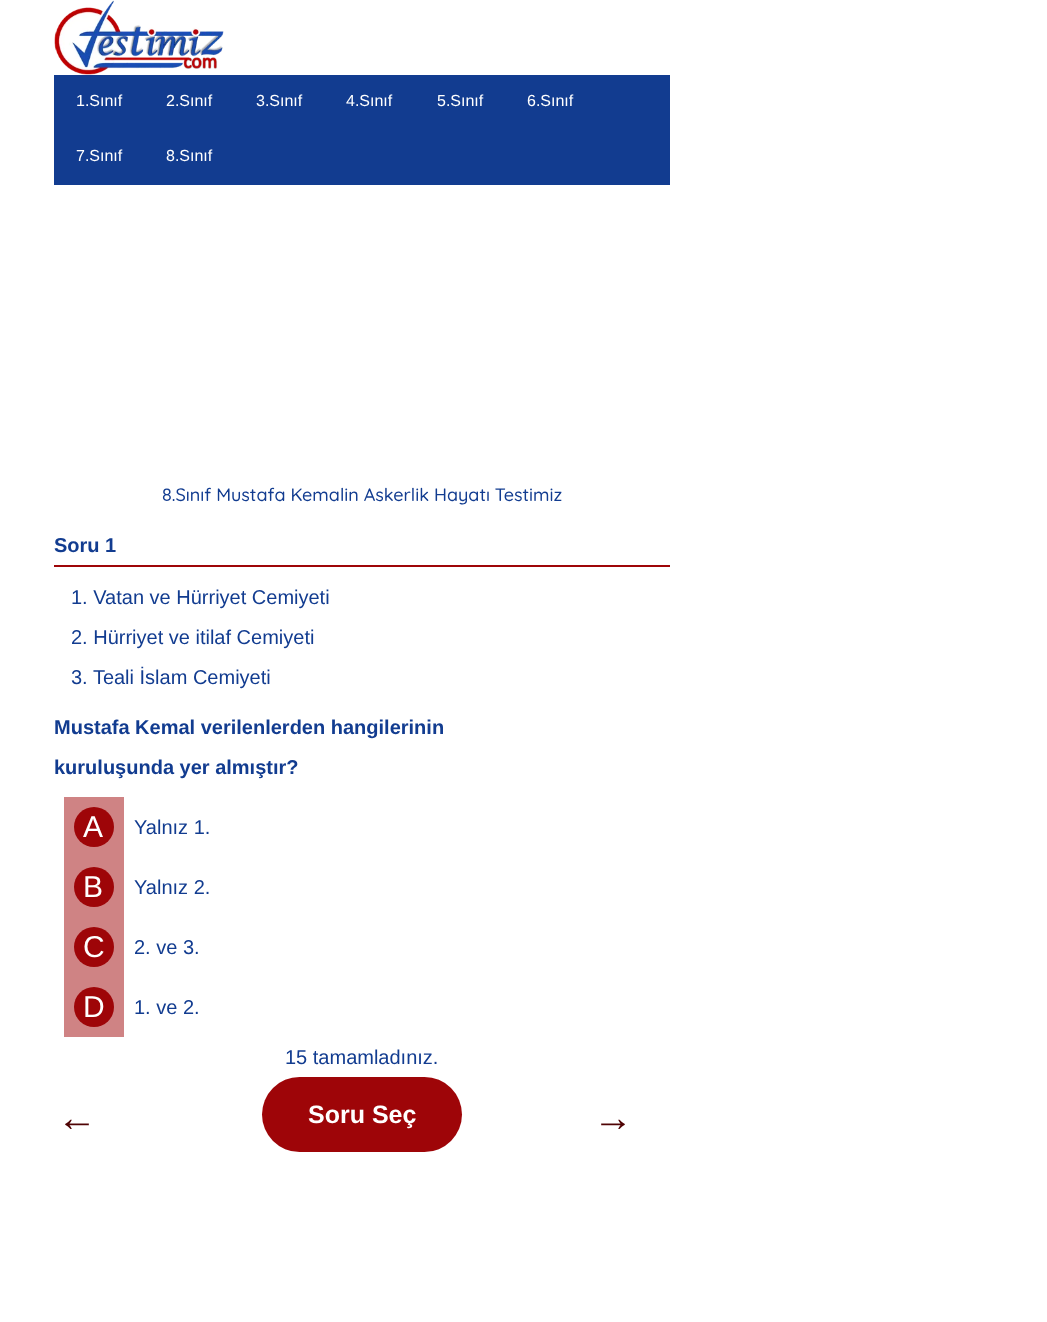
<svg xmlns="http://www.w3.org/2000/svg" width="1047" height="1322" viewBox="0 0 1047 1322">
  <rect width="100%" height="100%" fill="#ffffff"/>
  <image x="54" y="0" width="170" height="75" href="img1.png"/>
  <rect x="54" y="75" width="616" height="110" fill="#123c90"/>
  <text x="76" y="106" font-family="Liberation Sans" font-size="16" fill="#ffffff">1.Sınıf</text>
  <text x="166" y="106" font-family="Liberation Sans" font-size="16" fill="#ffffff">2.Sınıf</text>
  <text x="256" y="106" font-family="Liberation Sans" font-size="16" fill="#ffffff">3.Sınıf</text>
  <text x="346" y="106" font-family="Liberation Sans" font-size="16" fill="#ffffff">4.Sınıf</text>
  <text x="437" y="106" font-family="Liberation Sans" font-size="16" fill="#ffffff">5.Sınıf</text>
  <text x="527" y="106" font-family="Liberation Sans" font-size="16" fill="#ffffff">6.Sınıf</text>
  <text x="76" y="161" font-family="Liberation Sans" font-size="16" fill="#ffffff">7.Sınıf</text>
  <text x="166" y="161" font-family="Liberation Sans" font-size="16" fill="#ffffff">8.Sınıf</text>
  <text x="162" y="501" font-family="Quicksand" font-size="18" font-weight="500" fill="#123c90">8.Sınıf Mustafa Kemalin Askerlik Hayatı Testimiz</text>
  <rect x="54" y="565" width="616" height="2" fill="#9e0508"/>
  <text x="54" y="552" font-family="Liberation Sans" font-size="20" font-weight="bold" fill="#123c90">Soru 1</text>
  <text x="71" y="604" font-family="Liberation Sans" font-size="20" fill="#123c90">1. Vatan ve Hürriyet Cemiyeti</text>
  <text x="71" y="644" font-family="Liberation Sans" font-size="20" fill="#123c90">2. Hürriyet ve itilaf Cemiyeti</text>
  <text x="71" y="684" font-family="Liberation Sans" font-size="20" fill="#123c90">3. Teali İslam Cemiyeti</text>
  <text x="54" y="734" font-family="Liberation Sans" font-size="20" font-weight="bold" fill="#123c90">Mustafa Kemal verilenlerden hangilerinin</text>
  <text x="54" y="774" font-family="Liberation Sans" font-size="20" font-weight="bold" fill="#123c90">kuruluşunda yer almıştır?</text>
  <rect x="64" y="797" width="60" height="240" fill="#cf8384"/>
  <circle cx="94" cy="827" r="20" fill="#9e0508"/>
  <text x="83" y="837" font-family="Liberation Sans" font-size="30" fill="#ffffff">A</text>
  <text x="134" y="834" font-family="Liberation Sans" font-size="20" fill="#123c90">Yalnız 1.</text>
  <circle cx="94" cy="887" r="20" fill="#9e0508"/>
  <text x="83" y="897" font-family="Liberation Sans" font-size="30" fill="#ffffff">B</text>
  <text x="134" y="894" font-family="Liberation Sans" font-size="20" fill="#123c90">Yalnız 2.</text>
  <circle cx="94" cy="947" r="20" fill="#9e0508"/>
  <text x="83" y="957" font-family="Liberation Sans" font-size="30" fill="#ffffff">C</text>
  <text x="134" y="954" font-family="Liberation Sans" font-size="20" fill="#123c90">2. ve 3.</text>
  <circle cx="94" cy="1007" r="20" fill="#9e0508"/>
  <text x="83" y="1017" font-family="Liberation Sans" font-size="30" fill="#ffffff">D</text>
  <text x="134" y="1014" font-family="Liberation Sans" font-size="20" fill="#123c90">1. ve 2.</text>
  <text x="285" y="1064" font-family="Liberation Sans" font-size="20" fill="#123c90">15 tamamladınız.</text>
  <text x="57" y="1131" font-family="Liberation Sans" font-size="40" fill="#4f0304">←</text>
  <rect x="262" y="1077" width="200" height="75" rx="37.5" fill="#9e0508"/>
  <text x="308" y="1123" font-family="Liberation Sans" font-size="25" font-weight="bold" fill="#ffffff">Soru Seç</text>
  <text x="593" y="1131" font-family="Liberation Sans" font-size="40" fill="#4f0304">→</text>
</svg>
